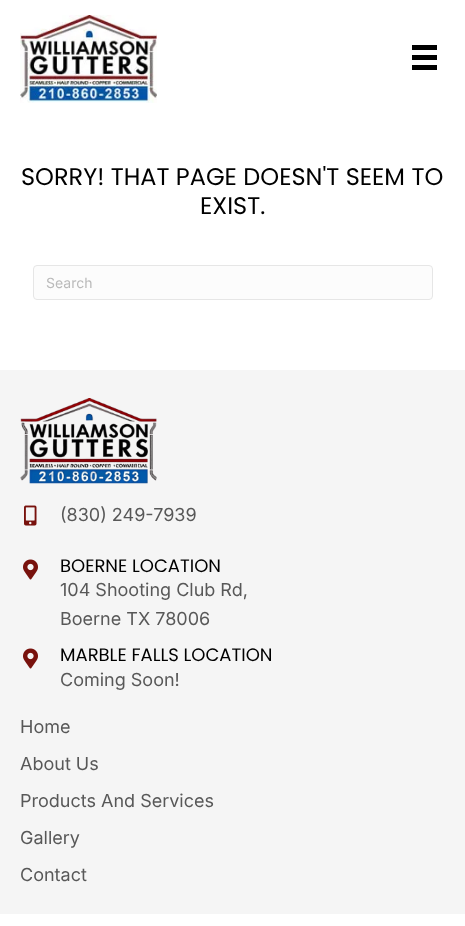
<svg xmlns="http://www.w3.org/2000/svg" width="465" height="926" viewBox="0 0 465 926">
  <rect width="100%" height="100%" fill="#ffffff"/>
  <image x="20" y="15" width="137" height="88" href="img1.png"/>
  <rect x="412" y="45" width="25" height="5" fill="#000000"/>
  <rect x="412" y="55" width="25" height="5" fill="#000000"/>
  <rect x="412" y="65" width="25" height="5" fill="#000000"/>
  <text x="21" y="185" font-family="Poppins" font-size="24" fill="#000000">SORRY! THAT PAGE DOESN'T SEEM TO</text>
  <text x="200" y="214" font-family="Poppins" font-size="24" fill="#000000">EXIST.</text>
  <rect x="33.5" y="265.5" width="399" height="34" rx="3.5" fill="#fcfcfc" stroke="#e6e6e6"/>
  <text x="46" y="288" font-family="Inter" font-size="14" fill="#bababa">Search</text>
  <rect x="0" y="370" width="465" height="544" fill="#f5f5f5"/>
  <image x="20" y="398" width="137" height="86" href="img2.png"/>
  <image x="24" y="505" width="13" height="21" href="img3.png"/>
  <text x="60" y="521" font-family="Inter" font-size="18" fill="#585858">(830) 249-7939</text>
  <image x="23" y="559" width="15" height="21" href="img4.png"/>
  <text x="60" y="572" font-family="Poppins" font-size="18" fill="#000000">BOERNE LOCATION</text>
  <text x="60" y="596" font-family="Inter" font-size="18" fill="#585858">104 Shooting Club Rd,</text>
  <text x="60" y="625" font-family="Inter" font-size="18" fill="#585858">Boerne TX 78006</text>
  <image x="23" y="648" width="15" height="21" href="img4.png"/>
  <text x="60" y="661" font-family="Poppins" font-size="18" fill="#000000">MARBLE FALLS LOCATION</text>
  <text x="60" y="686" font-family="Inter" font-size="18" fill="#585858">Coming Soon!</text>
  <text x="20" y="733" font-family="Inter" font-size="18" fill="#585858">Home</text>
  <text x="20" y="770" font-family="Inter" font-size="18" fill="#585858">About Us</text>
  <text x="20" y="807" font-family="Inter" font-size="18" fill="#585858">Products And Services</text>
  <text x="20" y="844" font-family="Inter" font-size="18" fill="#585858">Gallery</text>
  <text x="20" y="881" font-family="Inter" font-size="18" fill="#585858">Contact</text>
</svg>
